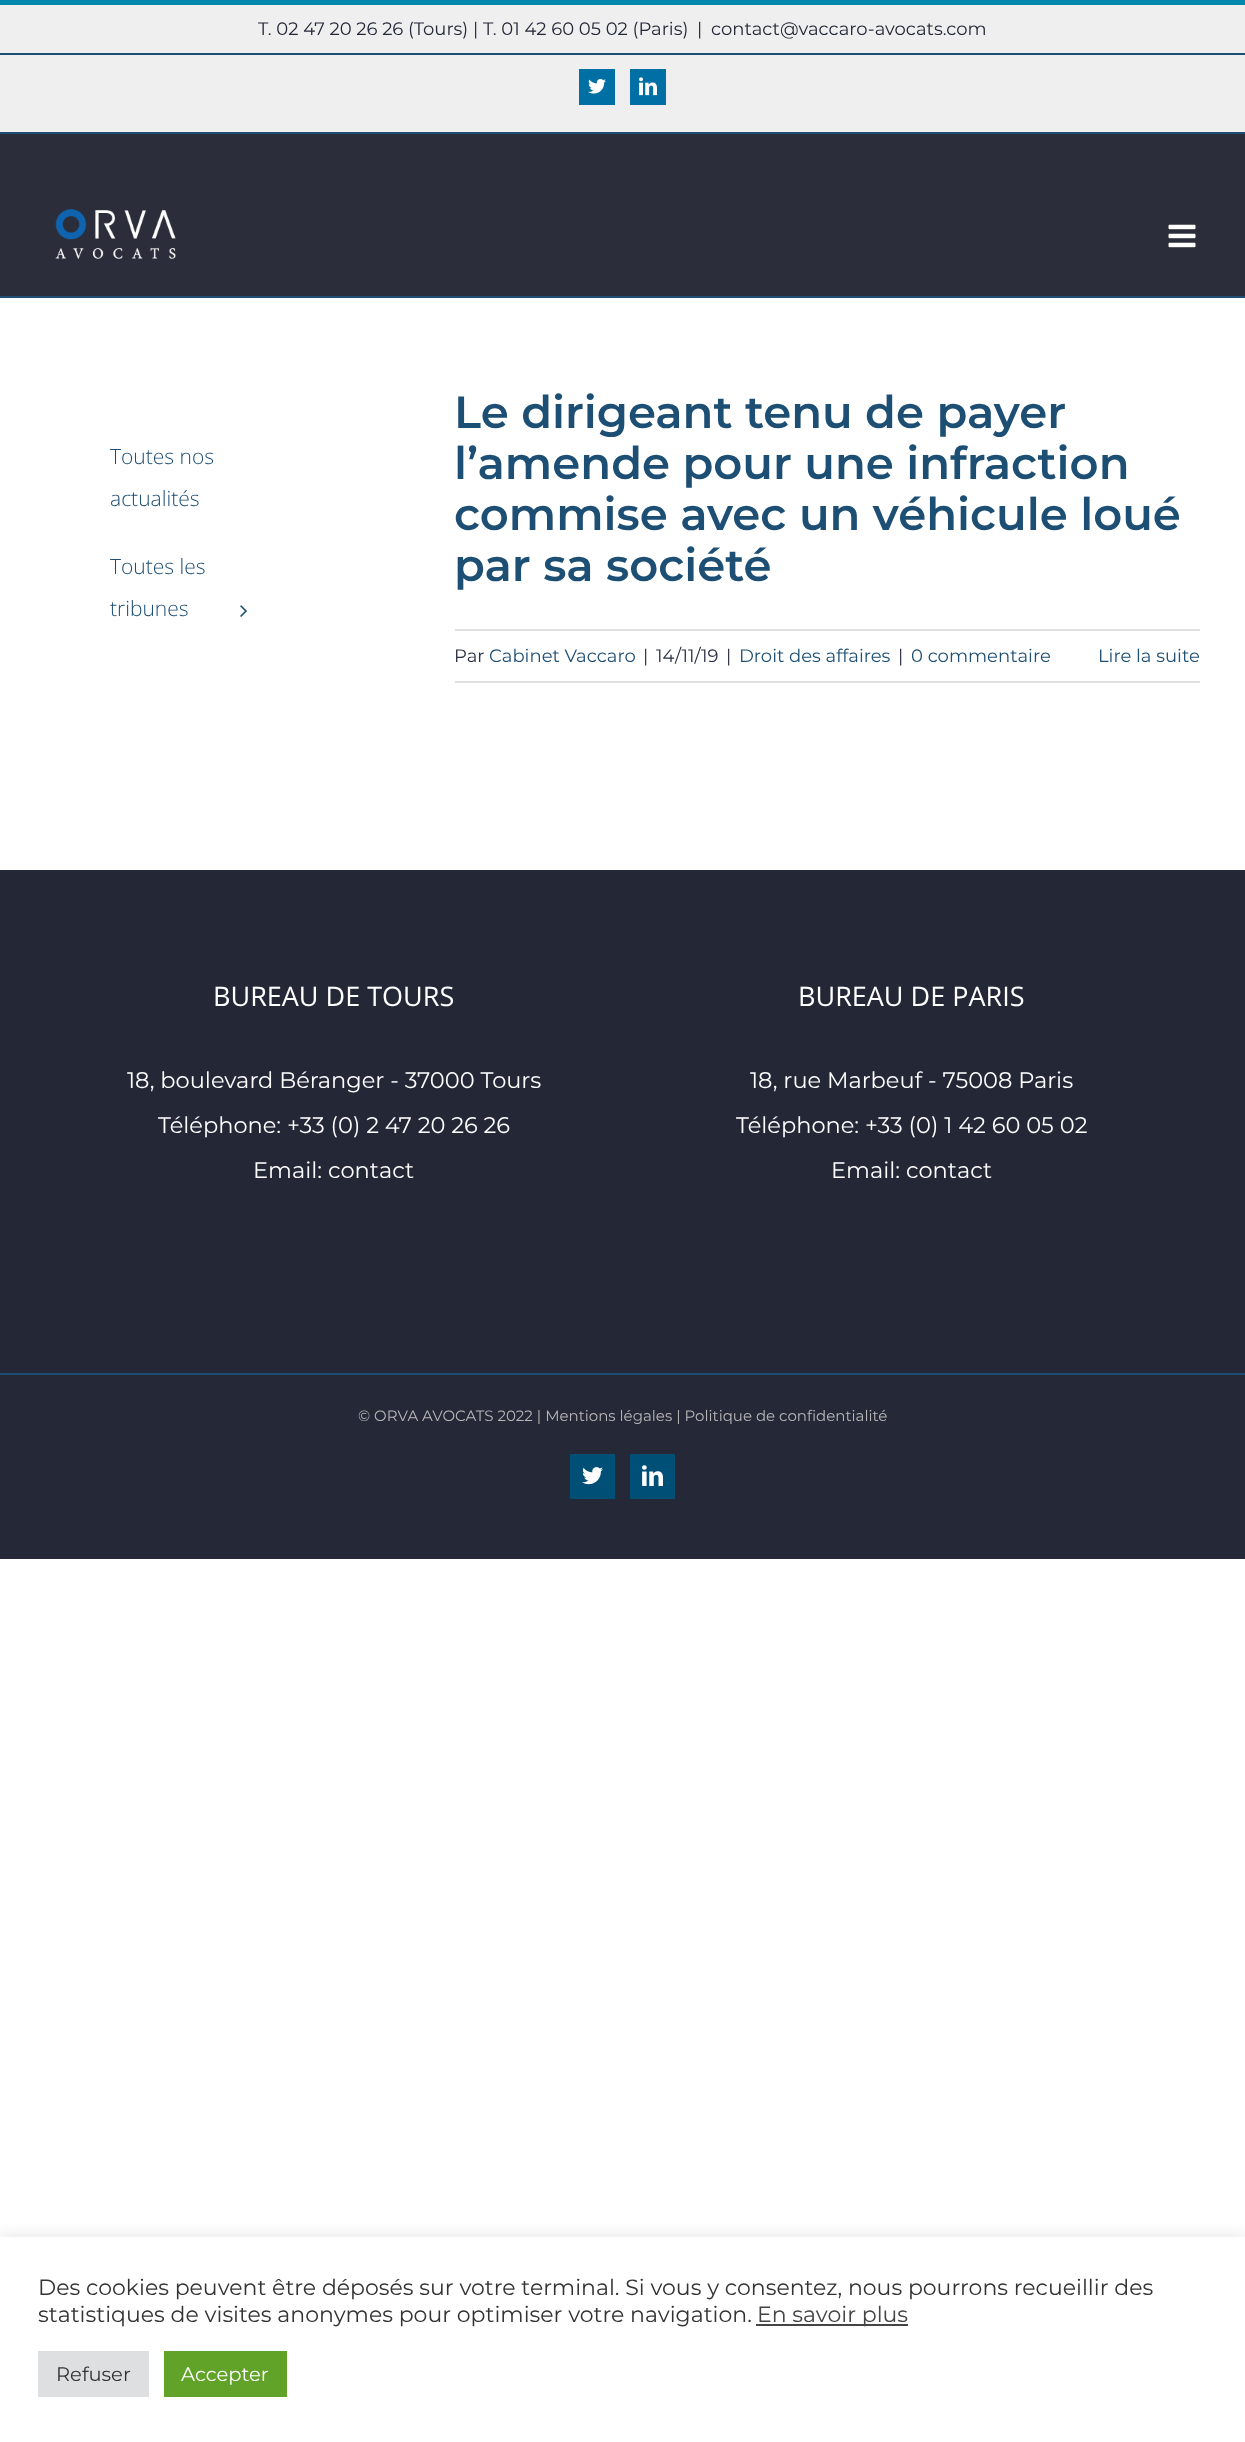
<svg xmlns="http://www.w3.org/2000/svg" width="1245" height="2442" viewBox="0 0 1245 2442">
  <defs>
    <clipPath id="clip1"><rect x="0" y="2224" width="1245" height="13"/></clipPath>
    <filter id="blur1" x="-50%" y="-200%" width="200%" height="500%"><feGaussianBlur stdDeviation="7.5"/></filter>
  </defs>
  <rect width="100%" height="100%" fill="#ffffff"/>
  <rect x="0" y="5" width="1245" height="127" fill="#efefef"/>
  <rect x="0" y="0" width="1245" height="5" fill="#0387ac"/>
  <rect x="0" y="132" width="1245" height="2" fill="#1d4f74"/>
  <rect x="0" y="53" width="1245" height="2" fill="#1d4f74"/>
  <text x="258" y="35" font-family="Montserrat" font-size="18" fill="#242736">T. 02 47 20 26 26 (Tours) | T. 01 42 60 05 02 (Paris)</text>
  <text x="697" y="35" font-family="Montserrat" font-size="18" fill="#242736">|</text>
  <text x="711" y="35" font-family="Montserrat" font-size="18" fill="#242736">contact@vaccaro-avocats.com</text>
  <rect x="579" y="69" width="36" height="36" fill="#006fa3"/>
  <image x="588" y="78" width="18" height="16" href="img1.png"/>
  <rect x="630" y="69" width="36" height="36" fill="#006fa3"/>
  <image x="639" y="77" width="18" height="19" href="img2.png"/>
  <rect x="0" y="134" width="1245" height="162" fill="#2b2e3a"/>
  <rect x="0" y="296" width="1245" height="2" fill="#1d4f74"/>
  <image x="55" y="209" width="121" height="50" href="img3.png"/>
  <image x="1168" y="224" width="28" height="24" href="img4.png"/>
  <text x="110" y="464" font-family="Open Sans" font-size="21" font-weight="300" fill="#1d4f74">Toutes nos</text>
  <text x="110" y="506" font-family="Open Sans" font-size="21" font-weight="300" fill="#1d4f74">actualités</text>
  <text x="110" y="574" font-family="Open Sans" font-size="21" font-weight="300" fill="#1d4f74">Toutes les</text>
  <text x="110" y="616" font-family="Open Sans" font-size="21" font-weight="300" fill="#1d4f74">tribunes</text>
  <image x="240" y="605" width="7" height="12" href="img5.png"/>
  <text x="454" y="428" font-family="Montserrat" font-size="45" font-weight="600" fill="#1d4f74">Le dirigeant tenu de payer</text>
  <text x="454" y="479" font-family="Montserrat" font-size="45" font-weight="600" fill="#1d4f74">l’amende pour une infraction</text>
  <text x="454" y="530" font-family="Montserrat" font-size="45" font-weight="600" fill="#1d4f74">commise avec un véhicule loué</text>
  <text x="454" y="581" font-family="Montserrat" font-size="45" font-weight="600" fill="#1d4f74">par sa société</text>
  <rect x="455" y="629" width="745" height="2" fill="#e0dede"/>
  <rect x="455" y="681" width="745" height="2" fill="#e0dede"/>
  <text x="454" y="662" font-family="Montserrat" font-size="18" fill="#2a2e45">Par</text>
  <text x="489" y="662" font-family="Montserrat" font-size="18" fill="#1d4f74">Cabinet Vaccaro</text>
  <text x="643" y="662" font-family="Montserrat" font-size="18" fill="#2a2e45">|</text>
  <text x="656" y="662" font-family="Montserrat" font-size="18" fill="#2a2e45">14/11/19</text>
  <text x="726" y="662" font-family="Montserrat" font-size="18" fill="#2a2e45">|</text>
  <text x="739" y="662" font-family="Montserrat" font-size="18" fill="#1d4f74">Droit des affaires</text>
  <text x="898" y="662" font-family="Montserrat" font-size="18" fill="#2a2e45">|</text>
  <text x="911" y="662" font-family="Montserrat" font-size="18" fill="#1d4f74">0 commentaire</text>
  <text x="1098" y="662" font-family="Montserrat" font-size="18" fill="#1d4f74">Lire la suite</text>
  <rect x="0" y="870" width="1245" height="503" fill="#242736"/>
  <text x="213" y="1006" font-family="Open Sans" font-size="27" fill="#ffffff">BUREAU DE TOURS</text>
  <text x="127" y="1088" font-family="Montserrat" font-size="22.5" fill="#ffffff">18, boulevard Béranger - 37000 Tours</text>
  <text x="158" y="1133" font-family="Montserrat" font-size="22.5" fill="#ffffff">Téléphone: +33 (0) 2 47 20 26 26</text>
  <text x="253" y="1178" font-family="Montserrat" font-size="22.5" fill="#ffffff">Email: contact</text>
  <text x="798" y="1006" font-family="Open Sans" font-size="27" fill="#ffffff">BUREAU DE PARIS</text>
  <text x="750" y="1088" font-family="Montserrat" font-size="22.5" fill="#ffffff">18, rue Marbeuf - 75008 Paris</text>
  <text x="736" y="1133" font-family="Montserrat" font-size="22.5" fill="#ffffff">Téléphone: +33 (0) 1 42 60 05 02</text>
  <text x="831" y="1178" font-family="Montserrat" font-size="22.5" fill="#ffffff">Email: contact</text>
  <rect x="0" y="1375" width="1245" height="184" fill="#252837"/>
  <rect x="0" y="1373" width="1245" height="2" fill="#1d4f74"/>
  <text x="358" y="1421" font-family="Montserrat" font-size="15" fill="#b7b7b7">© ORVA AVOCATS 2022 | Mentions légales | Politique de confidentialité</text>
  <rect x="570" y="1454" width="45" height="45" fill="#004f77"/>
  <image x="582" y="1467" width="21" height="18" href="img6.png"/>
  <rect x="630" y="1454" width="45" height="45" fill="#004f77"/>
  <image x="642" y="1465" width="21" height="21" href="img7.png"/>
  <g clip-path="url(#clip1)">
    <rect x="0" y="2235" width="1245" height="206" fill="#acabab" fill-opacity="0.3" filter="url(#blur1)"/>
  </g>
  <text x="38" y="2295" font-family="Montserrat" font-size="22" fill="#333333">Des cookies peuvent être déposés sur votre terminal. Si vous y consentez, nous pourrons recueillir des</text>
  <text x="38" y="2322" font-family="Montserrat" font-size="22" fill="#333333">statistiques de visites anonymes pour optimiser votre navigation.</text>
  <rect x="756" y="2324" width="152" height="2" fill="#444444"/>
  <text x="757" y="2322" font-family="Montserrat" font-size="22" fill="#444444">En savoir plus</text>
  <rect x="38" y="2351" width="111" height="46" fill="#dedfe0"/>
  <text x="56" y="2381" font-family="Montserrat" font-size="19.5" fill="#333333">Refuser</text>
  <rect x="164" y="2351" width="123" height="46" fill="#61a229"/>
  <text x="181" y="2381" font-family="Montserrat" font-size="19.5" fill="#ffffff">Accepter</text>
</svg>
